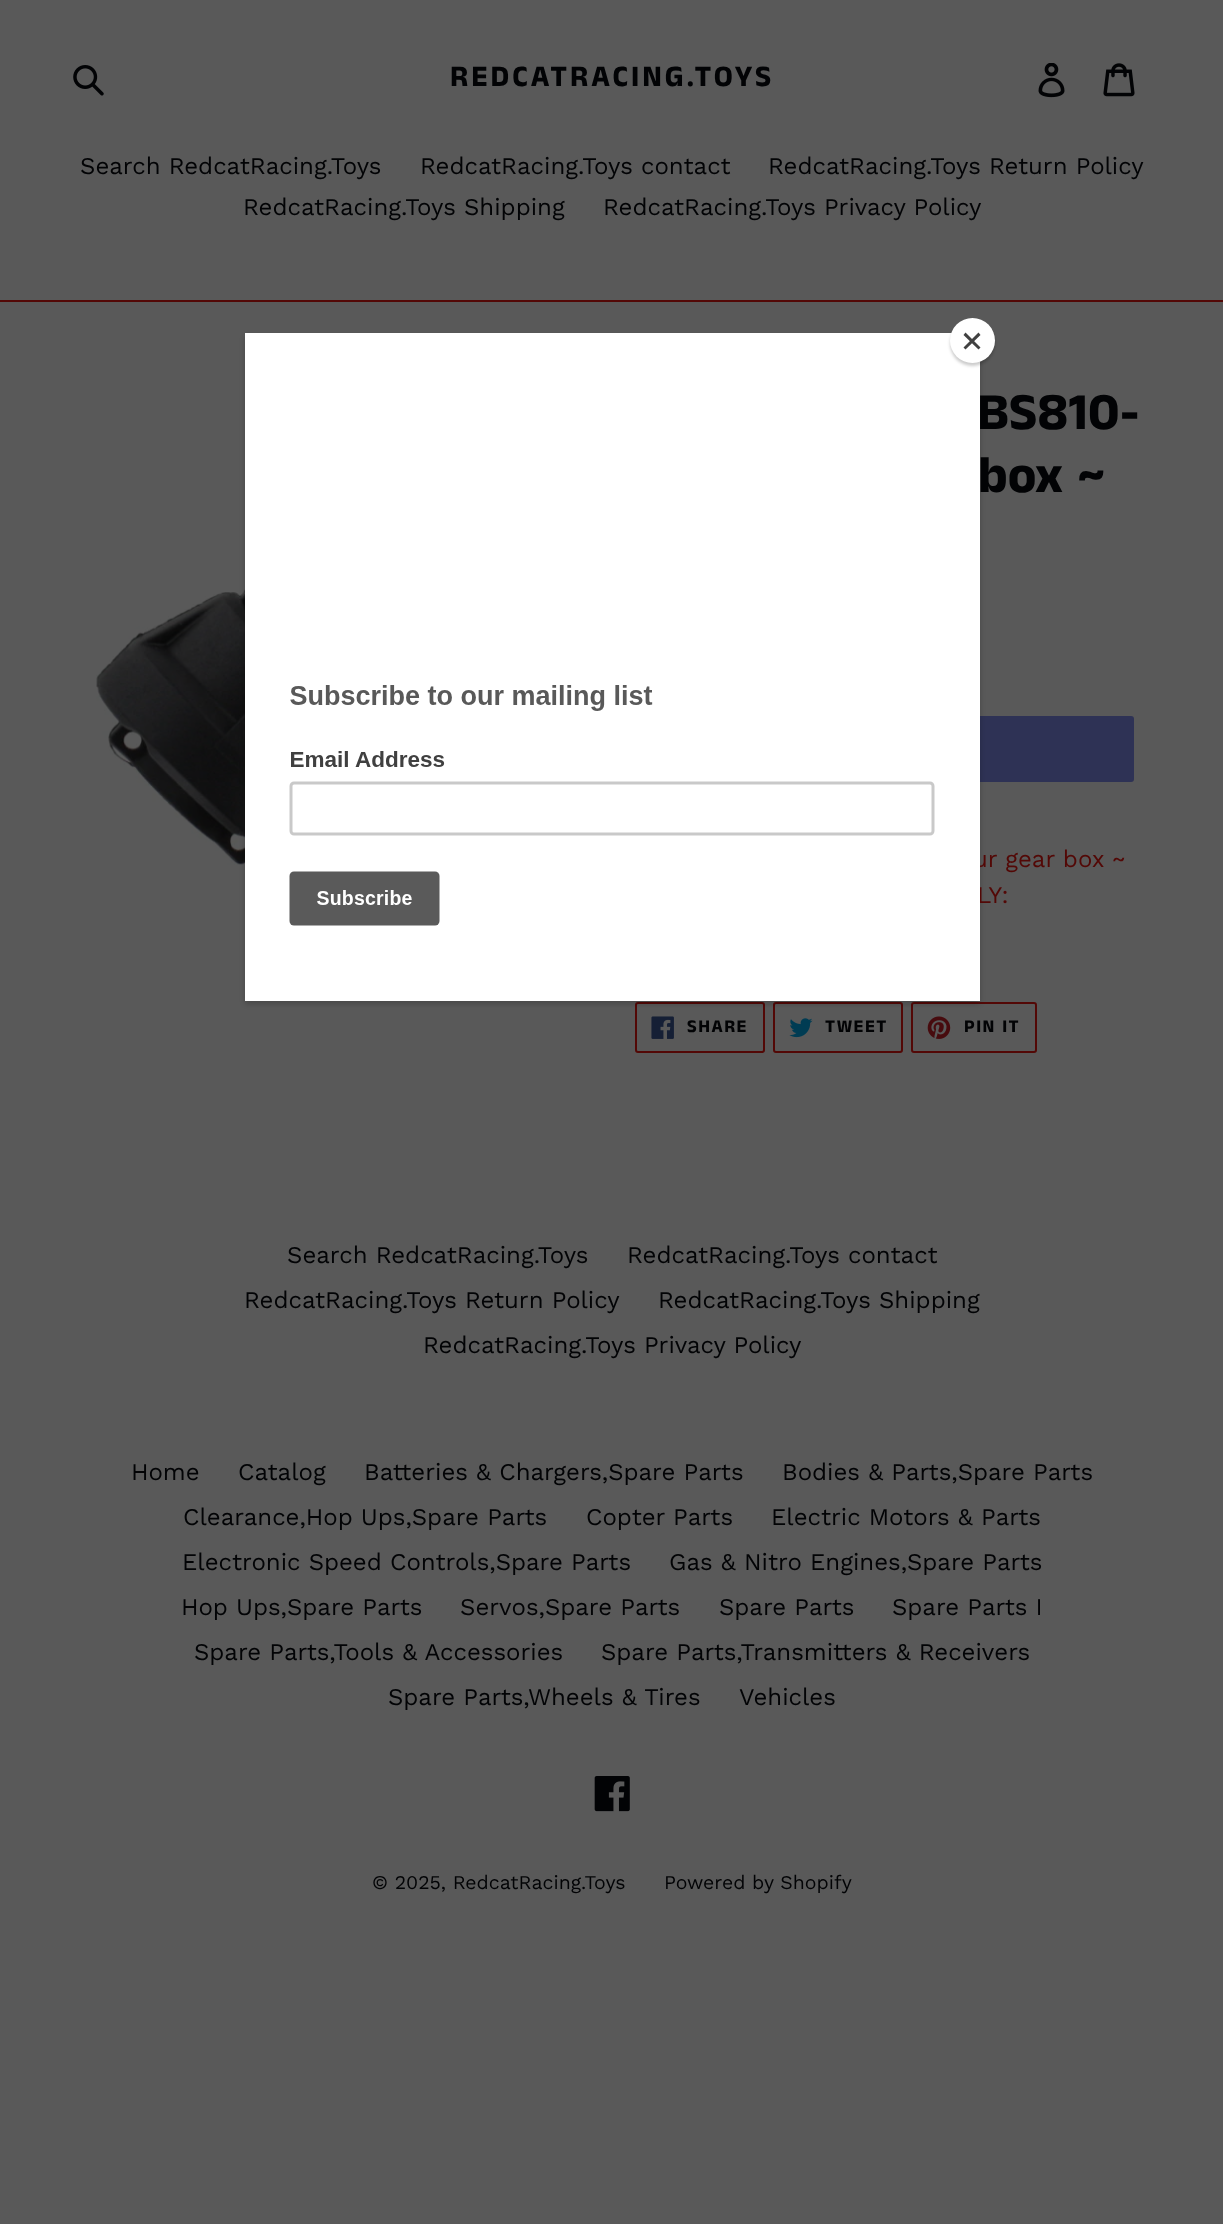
<svg xmlns="http://www.w3.org/2000/svg" width="1223" height="2224" viewBox="0 0 1223 2224">
  <defs>
    <filter id="blur1" x="-50%" y="-200%" width="200%" height="500%"><feGaussianBlur stdDeviation="3"/></filter>
    <filter id="blur2" x="-50%" y="-200%" width="200%" height="500%"><feGaussianBlur stdDeviation="1.5"/></filter>
  </defs>
  <rect width="100%" height="100%" fill="#595959"/>
  <image x="73" y="65" width="31" height="31" href="img1.png"/>
  <text x="450" y="86" font-family="Anek Tamil" font-size="30" font-weight="bold" letter-spacing="3" fill="#020305">REDCATRACING.TOYS</text>
  <image x="1038" y="63" width="27" height="35" href="img2.png"/>
  <image x="1103" y="63" width="32" height="34" href="img3.png"/>
  <rect x="0" y="300" width="1223" height="2" fill="#530806"/>
  <text x="80" y="174" font-family="Work Sans" font-size="24" fill="#020305">Search RedcatRacing.Toys</text>
  <text x="420" y="174" font-family="Work Sans" font-size="24" fill="#020305">RedcatRacing.Toys contact</text>
  <text x="768" y="174" font-family="Work Sans" font-size="24" fill="#020305">RedcatRacing.Toys Return Policy</text>
  <text x="243" y="215" font-family="Work Sans" font-size="24" fill="#020305">RedcatRacing.Toys Shipping</text>
  <text x="603" y="215" font-family="Work Sans" font-size="24" fill="#020305">RedcatRacing.Toys Privacy Policy</text>
  <image x="96" y="404" width="149" height="470" href="img5.png"/>
  <rect x="642" y="716" width="492" height="66" rx="3" fill="#2e3255"/>
  <rect x="636" y="1003" width="128" height="49" rx="2" fill="none" stroke="#530806" stroke-width="2"/>
  <rect x="774" y="1003" width="128" height="49" rx="2" fill="none" stroke="#530806" stroke-width="2"/>
  <rect x="912" y="1003" width="124" height="49" rx="2" fill="none" stroke="#530806" stroke-width="2"/>
  <rect x="245" y="336" width="735" height="668" fill="#000000" fill-opacity="0.2" filter="url(#blur1)"/>
  <text x="973" y="867" font-family="Work Sans" font-size="24" fill="#530806">ur gear box ~</text>
  <text x="977" y="903" font-family="Work Sans" font-size="24" fill="#530806">LY:</text>
  <image x="245" y="333" width="735" height="668" href="img4.png"/>
  <rect x="950" y="321" width="45" height="45" rx="22.5" fill="#000000" fill-opacity="0.2" filter="url(#blur2)"/>
  <circle cx="972.5" cy="340.5" r="22.5" fill="#ffffff"/>
  <path d="M978.5 332.5L980.5 335L965.5 349.5L963.5 347.5Z" fill="#414141"/>
  <path d="M963.5 335L965.5 332.5L980.5 347.5L978.5 349.5Z" fill="#414141"/>
  <text x="977" y="429" font-family="Anek Tamil" font-size="52.5" font-weight="bold" fill="#020305">BS810-</text>
  <text x="978" y="492" font-family="Anek Tamil" font-size="52.5" font-weight="bold" fill="#020305">box ~</text>
  <image x="651" y="1016" width="23" height="23" href="img6.png"/>
  <text x="687" y="1032" font-family="Anek Tamil" font-size="18" font-weight="bold" letter-spacing="1.5" fill="#020305">SHARE</text>
  <image x="789" y="1018" width="24" height="20" href="img7.png"/>
  <text x="825" y="1032" font-family="Anek Tamil" font-size="18" font-weight="bold" letter-spacing="1.5" fill="#020305">TWEET</text>
  <image x="927" y="1016" width="24" height="23" href="img8.png"/>
  <text x="964" y="1032" font-family="Anek Tamil" font-size="18" font-weight="bold" letter-spacing="1.5" fill="#020305">PIN IT</text>
  <text x="287" y="1263" font-family="Work Sans" font-size="24" fill="#020305">Search RedcatRacing.Toys</text>
  <text x="627" y="1263" font-family="Work Sans" font-size="24" fill="#020305">RedcatRacing.Toys contact</text>
  <text x="244" y="1308" font-family="Work Sans" font-size="24" fill="#020305">RedcatRacing.Toys Return Policy</text>
  <text x="658" y="1308" font-family="Work Sans" font-size="24" fill="#020305">RedcatRacing.Toys Shipping</text>
  <text x="423" y="1353" font-family="Work Sans" font-size="24" fill="#020305">RedcatRacing.Toys Privacy Policy</text>
  <text x="131" y="1480" font-family="Work Sans" font-size="24" fill="#020305">Home</text>
  <text x="238" y="1480" font-family="Work Sans" font-size="24" fill="#020305">Catalog</text>
  <text x="364" y="1480" font-family="Work Sans" font-size="24" fill="#020305">Batteries &amp; Chargers,Spare Parts</text>
  <text x="782" y="1480" font-family="Work Sans" font-size="24" fill="#020305">Bodies &amp; Parts,Spare Parts</text>
  <text x="183" y="1525" font-family="Work Sans" font-size="24" fill="#020305">Clearance,Hop Ups,Spare Parts</text>
  <text x="586" y="1525" font-family="Work Sans" font-size="24" fill="#020305">Copter Parts</text>
  <text x="771" y="1525" font-family="Work Sans" font-size="24" fill="#020305">Electric Motors &amp; Parts</text>
  <text x="182" y="1570" font-family="Work Sans" font-size="24" fill="#020305">Electronic Speed Controls,Spare Parts</text>
  <text x="669" y="1570" font-family="Work Sans" font-size="24" fill="#020305">Gas &amp; Nitro Engines,Spare Parts</text>
  <text x="181" y="1615" font-family="Work Sans" font-size="24" fill="#020305">Hop Ups,Spare Parts</text>
  <text x="460" y="1615" font-family="Work Sans" font-size="24" fill="#020305">Servos,Spare Parts</text>
  <text x="719" y="1615" font-family="Work Sans" font-size="24" fill="#020305">Spare Parts</text>
  <text x="892" y="1615" font-family="Work Sans" font-size="24" fill="#020305">Spare Parts I</text>
  <text x="194" y="1660" font-family="Work Sans" font-size="24" fill="#020305">Spare Parts,Tools &amp; Accessories</text>
  <text x="601" y="1660" font-family="Work Sans" font-size="24" fill="#020305">Spare Parts,Transmitters &amp; Receivers</text>
  <text x="388" y="1705" font-family="Work Sans" font-size="24" fill="#020305">Spare Parts,Wheels &amp; Tires</text>
  <text x="739" y="1705" font-family="Work Sans" font-size="24" fill="#020305">Vehicles</text>
  <image x="594" y="1776" width="36" height="36" href="img9.png"/>
  <text x="372" y="1889" font-family="Work Sans" font-size="19.5" fill="#020305">© 2025, RedcatRacing.Toys</text>
  <text x="664" y="1889" font-family="Work Sans" font-size="19.5" fill="#020305">Powered by Shopify</text>
</svg>
